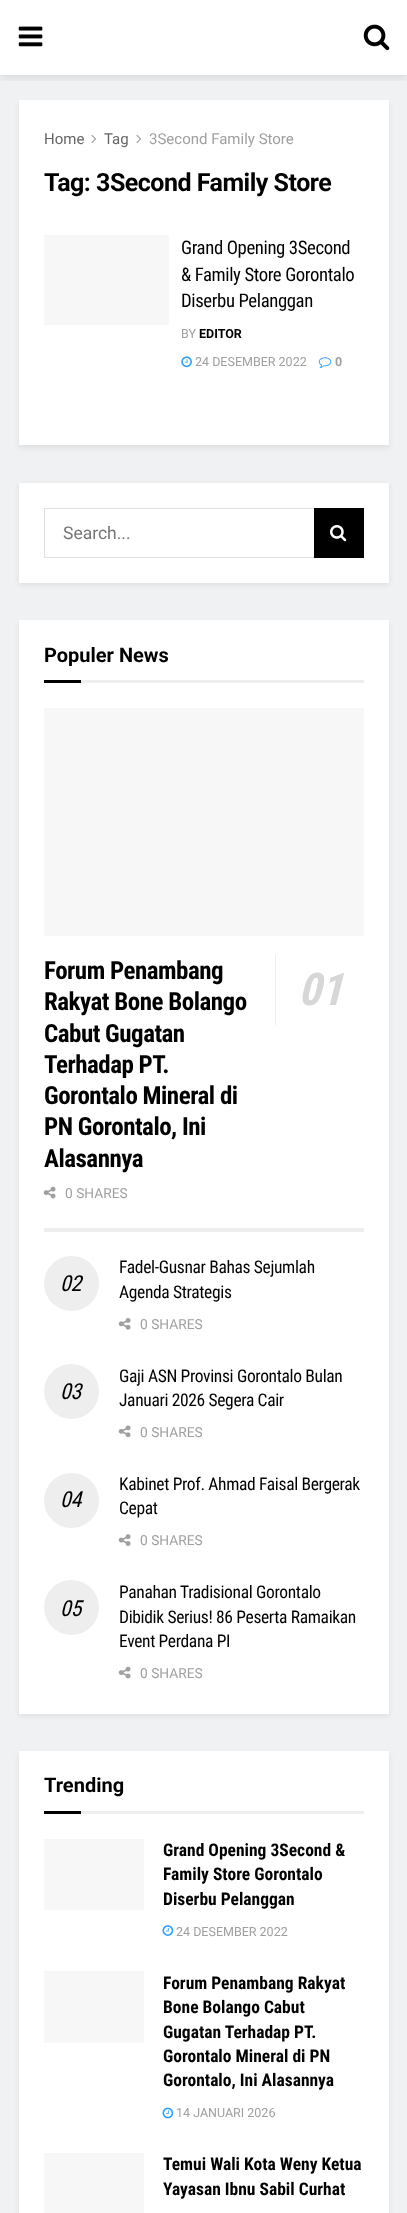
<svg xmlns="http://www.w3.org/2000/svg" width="407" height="2213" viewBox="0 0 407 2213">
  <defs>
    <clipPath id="clip1"><rect x="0" y="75" width="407" height="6"/></clipPath>
    <filter id="blur1" x="-50%" y="-200%" width="200%" height="500%"><feGaussianBlur stdDeviation="4"/></filter>
    <filter id="blur2" x="-50%" y="-200%" width="200%" height="500%"><feGaussianBlur stdDeviation="2.5"/></filter>
  </defs>
  <rect width="100%" height="100%" fill="#ffffff"/>
  <rect x="0" y="75" width="407" height="2138" fill="#f0f1f2"/>
  <g clip-path="url(#clip1)">
    <rect x="0" y="3" width="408" height="75" fill="#000000" fill-opacity="0.1" filter="url(#blur1)"/>
  </g>
  <image x="18" y="26" width="25" height="21" href="img1.png"/>
  <image x="363" y="24" width="27" height="27" href="img2.png"/>
  <rect x="19" y="103" width="370" height="345" fill="#000000" fill-opacity="0.08" filter="url(#blur2)"/>
  <rect x="19" y="100" width="370" height="345" fill="#ffffff"/>
  <text x="44" y="144" font-family="Roboto" font-size="15" fill="#666666">Home</text>
  <image x="91" y="134" width="6" height="9" href="img3.png"/>
  <text x="104" y="144" font-family="Roboto" font-size="15" fill="#666666">Tag</text>
  <image x="136" y="134" width="6" height="9" href="img3.png"/>
  <text x="149" y="144" font-family="Roboto" font-size="15" fill="#a0a0a0">3Second Family Store</text>
  <text x="44" y="191" font-family="Roboto" font-size="25" font-weight="bold" letter-spacing="-0.5" fill="#000000">Tag: 3Second Family Store</text>
  <rect x="44" y="235" width="125" height="90" fill="#f7f7f7"/>
  <text x="181" y="254" font-family="Roboto Condensed" font-size="18.75" letter-spacing="-0.4" fill="#000000">Grand Opening 3Second</text>
  <text x="181" y="281" font-family="Roboto Condensed" font-size="18.75" letter-spacing="-0.4" fill="#000000">&amp; Family Store Gorontalo</text>
  <text x="181" y="307" font-family="Roboto Condensed" font-size="18.75" letter-spacing="-0.4" fill="#000000">Diserbu Pelanggan</text>
  <text x="181" y="338" font-family="Roboto" font-size="12.5" fill="#a0a0a0">BY</text>
  <text x="199" y="338" font-family="Roboto" font-size="12.5" font-weight="bold" fill="#000000">EDITOR</text>
  <image x="181" y="356" width="11" height="12" href="img4.png"/>
  <text x="195" y="366" font-family="Roboto" font-size="12.5" fill="#a0a0a0">24 DESEMBER 2022</text>
  <image x="318" y="357" width="14" height="11" href="img5.png"/>
  <text x="335" y="366" font-family="Roboto" font-size="12.5" font-weight="bold" fill="#a0a0a0">0</text>
  <rect x="19" y="485" width="370" height="100" fill="#000000" fill-opacity="0.08" filter="url(#blur2)"/>
  <rect x="19" y="483" width="370" height="100" fill="#ffffff"/>
  <rect x="44.5" y="508.5" width="319" height="49" fill="none" stroke="#e0e0e0"/>
  <text x="63" y="539" font-family="Roboto" font-size="17.5" fill="#757575">Search...</text>
  <rect x="314" y="508" width="50" height="50" fill="#000000"/>
  <image x="330" y="525" width="17" height="17" href="img6.png"/>
  <rect x="19" y="623" width="370" height="1093" fill="#000000" fill-opacity="0.08" filter="url(#blur2)"/>
  <rect x="19" y="620" width="370" height="1094" fill="#ffffff"/>
  <rect x="81" y="680" width="283" height="3" fill="#eeeeee"/>
  <text x="44" y="662" font-family="Roboto" font-size="20" font-weight="bold" fill="#000000">Populer News</text>
  <rect x="44" y="680" width="37" height="3" fill="#000000"/>
  <rect x="44" y="1228" width="320" height="4" fill="#eeeeee"/>
  <rect x="44" y="708" width="320" height="228" fill="#f7f7f7"/>
  <text x="44" y="979" font-family="Roboto Condensed" font-size="25" font-weight="bold" letter-spacing="-0.5" fill="#000000">Forum Penambang</text>
  <rect x="275" y="955" width="1" height="70" fill="#eeeeee"/>
  <text x="298" y="1005" font-family="Roboto Condensed" font-size="45" font-weight="bold" font-style="italic" letter-spacing="-0.5" fill="#d7d7d7">01</text>
  <text x="44" y="1010" font-family="Roboto Condensed" font-size="25" font-weight="bold" letter-spacing="-0.5" fill="#000000">Rakyat Bone Bolango</text>
  <text x="44" y="1042" font-family="Roboto Condensed" font-size="25" font-weight="bold" letter-spacing="-0.5" fill="#000000">Cabut Gugatan</text>
  <text x="44" y="1073" font-family="Roboto Condensed" font-size="25" font-weight="bold" letter-spacing="-0.5" fill="#000000">Terhadap PT.</text>
  <text x="44" y="1104" font-family="Roboto Condensed" font-size="25" font-weight="bold" letter-spacing="-0.5" fill="#000000">Gorontalo Mineral di</text>
  <text x="44" y="1135" font-family="Roboto Condensed" font-size="25" font-weight="bold" letter-spacing="-0.5" fill="#000000">PN Gorontalo, Ini</text>
  <text x="44" y="1167" font-family="Roboto Condensed" font-size="25" font-weight="bold" letter-spacing="-0.5" fill="#000000">Alasannya</text>
  <image x="43" y="1186" width="13" height="13" href="img7.png"/>
  <text x="65" y="1198" font-family="Roboto" font-size="13.75" fill="#a0a0a0">0 SHARES</text>
  <text x="119" y="1273" font-family="Roboto Condensed" font-size="17.5" letter-spacing="-0.35" fill="#000000">Fadel-Gusnar Bahas Sejumlah</text>
  <circle cx="71.5" cy="1283.5" r="27.5" fill="#eeeeee"/>
  <text x="60" y="1291" font-family="Roboto Condensed" font-size="22" font-style="italic" letter-spacing="-0.35" fill="#000000">02</text>
  <text x="119" y="1298" font-family="Roboto Condensed" font-size="17.5" letter-spacing="-0.35" fill="#000000">Agenda Strategis</text>
  <image x="118" y="1318" width="13" height="12" href="img8.png"/>
  <text x="140" y="1329" font-family="Roboto" font-size="13.75" fill="#a0a0a0">0 SHARES</text>
  <text x="119" y="1382" font-family="Roboto Condensed" font-size="17.5" letter-spacing="-0.35" fill="#000000">Gaji ASN Provinsi Gorontalo Bulan</text>
  <circle cx="71.5" cy="1391.5" r="27.5" fill="#eeeeee"/>
  <text x="60" y="1399" font-family="Roboto Condensed" font-size="22" font-style="italic" letter-spacing="-0.35" fill="#000000">03</text>
  <text x="119" y="1406" font-family="Roboto Condensed" font-size="17.5" letter-spacing="-0.35" fill="#000000">Januari 2026 Segera Cair</text>
  <image x="118" y="1425" width="13" height="13" href="img9.png"/>
  <text x="140" y="1437" font-family="Roboto" font-size="13.75" fill="#a0a0a0">0 SHARES</text>
  <text x="119" y="1490" font-family="Roboto Condensed" font-size="17.5" letter-spacing="-0.35" fill="#000000">Kabinet Prof. Ahmad Faisal Bergerak</text>
  <circle cx="71.5" cy="1500.5" r="27.5" fill="#eeeeee"/>
  <text x="60" y="1507" font-family="Roboto Condensed" font-size="22" font-style="italic" letter-spacing="-0.35" fill="#000000">04</text>
  <text x="119" y="1514" font-family="Roboto Condensed" font-size="17.5" letter-spacing="-0.35" fill="#000000">Cepat</text>
  <image x="118" y="1534" width="13" height="12" href="img10.png"/>
  <text x="140" y="1545" font-family="Roboto" font-size="13.75" fill="#a0a0a0">0 SHARES</text>
  <text x="119" y="1598" font-family="Roboto Condensed" font-size="17.5" letter-spacing="-0.35" fill="#000000">Panahan Tradisional Gorontalo</text>
  <circle cx="71.5" cy="1607.5" r="27.5" fill="#eeeeee"/>
  <text x="60" y="1616" font-family="Roboto Condensed" font-size="22" font-style="italic" letter-spacing="-0.35" fill="#000000">05</text>
  <text x="119" y="1623" font-family="Roboto Condensed" font-size="17.5" letter-spacing="-0.35" fill="#000000">Dibidik Serius! 86 Peserta Ramaikan</text>
  <text x="119" y="1647" font-family="Roboto Condensed" font-size="17.5" letter-spacing="-0.35" fill="#000000">Event Perdana PI</text>
  <image x="118" y="1666" width="13" height="13" href="img7.png"/>
  <text x="140" y="1678" font-family="Roboto" font-size="13.75" fill="#a0a0a0">0 SHARES</text>
  <rect x="19" y="1754" width="370" height="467" fill="#000000" fill-opacity="0.08" filter="url(#blur2)"/>
  <rect x="19" y="1751" width="370" height="462" fill="#ffffff"/>
  <rect x="81" y="1811" width="283" height="3" fill="#eeeeee"/>
  <text x="44" y="1792" font-family="Roboto" font-size="20" font-weight="bold" fill="#000000">Trending</text>
  <rect x="44" y="1811" width="37" height="3" fill="#000000"/>
  <rect x="44" y="1839" width="100" height="71" fill="#f7f7f7"/>
  <text x="163" y="1856" font-family="Roboto Condensed" font-size="17.5" font-weight="bold" fill="#000000">Grand Opening 3Second &amp;</text>
  <text x="163" y="1880" font-family="Roboto Condensed" font-size="17.5" font-weight="bold" fill="#000000">Family Store Gorontalo</text>
  <text x="163" y="1905" font-family="Roboto Condensed" font-size="17.5" font-weight="bold" fill="#000000">Diserbu Pelanggan</text>
  <image x="162" y="1925" width="12" height="11" href="img11.png"/>
  <text x="176" y="1936" font-family="Roboto" font-size="12.5" fill="#a0a0a0">24 DESEMBER 2022</text>
  <rect x="44" y="1971" width="100" height="72" fill="#f7f7f7"/>
  <text x="163" y="1989" font-family="Roboto Condensed" font-size="17.5" font-weight="bold" fill="#000000">Forum Penambang Rakyat</text>
  <text x="163" y="2013" font-family="Roboto Condensed" font-size="17.5" font-weight="bold" fill="#000000">Bone Bolango Cabut</text>
  <text x="163" y="2038" font-family="Roboto Condensed" font-size="17.5" font-weight="bold" fill="#000000">Gugatan Terhadap PT.</text>
  <text x="163" y="2062" font-family="Roboto Condensed" font-size="17.5" font-weight="bold" fill="#000000">Gorontalo Mineral di PN</text>
  <text x="163" y="2086" font-family="Roboto Condensed" font-size="17.5" font-weight="bold" fill="#000000">Gorontalo, Ini Alasannya</text>
  <image x="162" y="2107" width="12" height="12" href="img12.png"/>
  <text x="176" y="2117" font-family="Roboto" font-size="12.5" fill="#a0a0a0">14 JANUARI 2026</text>
  <rect x="44" y="2153" width="100" height="60" fill="#f7f7f7"/>
  <text x="163" y="2170" font-family="Roboto Condensed" font-size="17.5" font-weight="bold" fill="#000000">Temui Wali Kota Weny Ketua</text>
  <text x="163" y="2195" font-family="Roboto Condensed" font-size="17.5" font-weight="bold" fill="#000000">Yayasan Ibnu Sabil Curhat</text>
</svg>
